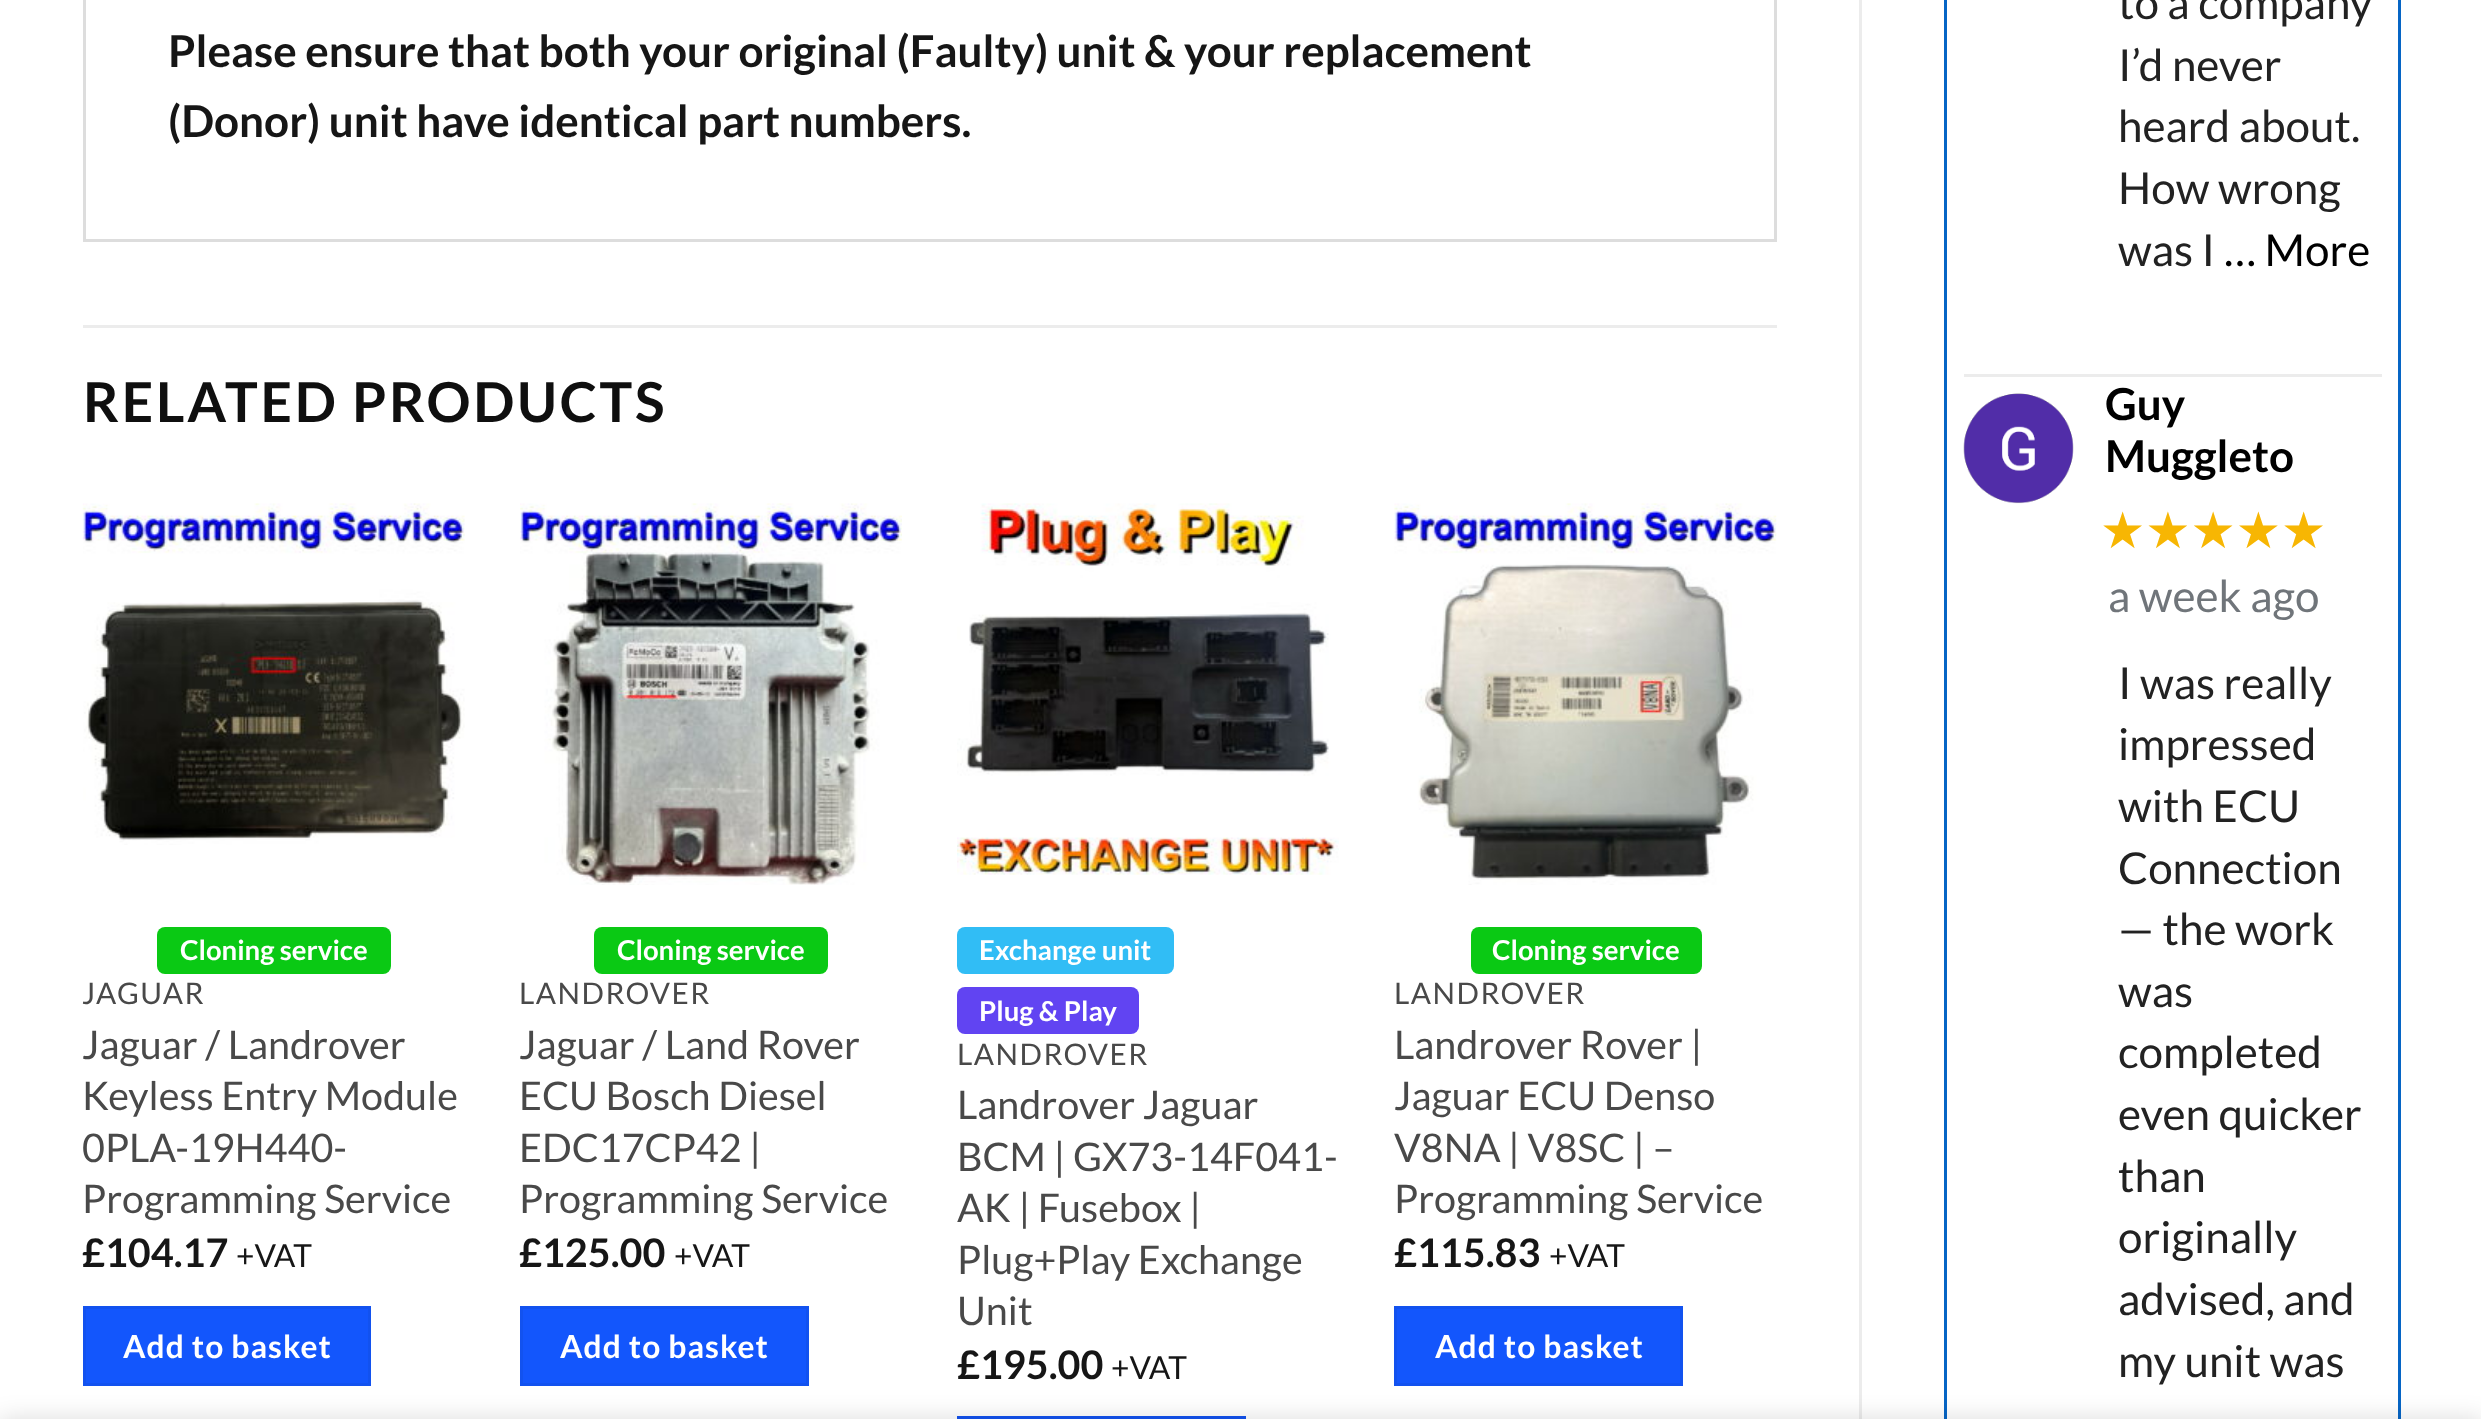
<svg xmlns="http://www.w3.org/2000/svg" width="2481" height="1419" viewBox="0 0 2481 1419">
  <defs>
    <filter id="blur1" x="-50%" y="-200%" width="200%" height="500%"><feGaussianBlur stdDeviation="12.5"/></filter>
  </defs>
  <rect width="100%" height="100%" fill="#ffffff"/>
  <rect x="1859" y="0" width="3" height="1419" fill="#ececec"/>
  <rect x="84.5" y="-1.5" width="1691" height="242" fill="none" stroke="#dddddd" stroke-width="3"/>
  <text x="168" y="67" font-family="Lato" font-size="44" font-weight="bold" fill="#161616">Please ensure that both your original (Faulty) unit &amp; your replacement</text>
  <text x="168" y="137" font-family="Lato" font-size="44" font-weight="bold" fill="#161616">(Donor) unit have identical part numbers.</text>
  <rect x="83" y="325" width="1694" height="3" fill="#ececec"/>
  <text x="83" y="422" font-family="Lato" font-size="55" font-weight="bold" letter-spacing="2.75" fill="#0f0f0f">RELATED PRODUCTS</text>
  <image x="82" y="503" width="383" height="342" href="img1.png"/>
  <rect x="157" y="927" width="234" height="47" rx="8" fill="#0ac914"/>
  <text x="180" y="960" font-family="Lato" font-size="27.5" font-weight="bold" fill="#ffffff">Cloning service</text>
  <text x="82" y="1004" font-family="Lato" font-size="29.75" letter-spacing="1.5" fill="#494949">JAGUAR</text>
  <text x="82" y="1059" font-family="Lato" font-size="39.5" fill="#494949">Jaguar / Landrover</text>
  <text x="82" y="1110" font-family="Lato" font-size="39.5" fill="#494949">Keyless Entry Module</text>
  <text x="82" y="1162" font-family="Lato" font-size="39.5" fill="#494949">0PLA-19H440-</text>
  <text x="82" y="1213" font-family="Lato" font-size="39.5" fill="#494949">Programming Service</text>
  <text x="82" y="1267" font-family="Lato" font-size="39.5" font-weight="bold" fill="#161616">£104.17</text>
  <text x="236" y="1267" font-family="Lato" font-size="31.75" fill="#161616">+VAT</text>
  <rect x="84.5" y="1307.5" width="285" height="77" fill="#1356fc" stroke="#1252ef" stroke-width="3"/>
  <text x="123" y="1358" font-family="Lato" font-size="31.75" font-weight="bold" letter-spacing="1" fill="#ffffff">Add to basket</text>
  <image x="520" y="503" width="382" height="382" href="img2.png"/>
  <rect x="594" y="927" width="234" height="47" rx="8" fill="#0ac914"/>
  <text x="617" y="960" font-family="Lato" font-size="27.5" font-weight="bold" fill="#ffffff">Cloning service</text>
  <text x="519" y="1004" font-family="Lato" font-size="29.75" letter-spacing="1.5" fill="#494949">LANDROVER</text>
  <text x="519" y="1059" font-family="Lato" font-size="39.5" fill="#494949">Jaguar / Land Rover</text>
  <text x="519" y="1110" font-family="Lato" font-size="39.5" fill="#494949">ECU Bosch Diesel</text>
  <text x="519" y="1162" font-family="Lato" font-size="39.5" fill="#494949">EDC17CP42 |</text>
  <text x="519" y="1213" font-family="Lato" font-size="39.5" fill="#494949">Programming Service</text>
  <text x="519" y="1267" font-family="Lato" font-size="39.5" font-weight="bold" fill="#161616">£125.00</text>
  <text x="674" y="1267" font-family="Lato" font-size="31.75" fill="#161616">+VAT</text>
  <rect x="521.5" y="1307.5" width="286" height="77" fill="#1356fc" stroke="#1252ef" stroke-width="3"/>
  <text x="560" y="1358" font-family="Lato" font-size="31.75" font-weight="bold" letter-spacing="1" fill="#ffffff">Add to basket</text>
  <image x="957" y="503" width="382" height="372" href="img3.png"/>
  <rect x="957" y="927" width="217" height="47" rx="8" fill="#31bdf5"/>
  <text x="979" y="960" font-family="Lato" font-size="27.5" font-weight="bold" fill="#ffffff">Exchange unit</text>
  <rect x="957" y="987" width="182" height="47" rx="8" fill="#6144f2"/>
  <text x="979" y="1021" font-family="Lato" font-size="27.5" font-weight="bold" fill="#ffffff">Plug &amp; Play</text>
  <text x="957" y="1065" font-family="Lato" font-size="29.75" letter-spacing="1.5" fill="#494949">LANDROVER</text>
  <text x="957" y="1119" font-family="Lato" font-size="39.5" fill="#494949">Landrover Jaguar</text>
  <text x="957" y="1171" font-family="Lato" font-size="39.5" fill="#494949">BCM | GX73-14F041-</text>
  <text x="957" y="1222" font-family="Lato" font-size="39.5" fill="#494949">AK | Fusebox |</text>
  <text x="957" y="1274" font-family="Lato" font-size="39.5" fill="#494949">Plug+Play Exchange</text>
  <text x="957" y="1325" font-family="Lato" font-size="39.5" fill="#494949">Unit</text>
  <text x="957" y="1379" font-family="Lato" font-size="39.5" font-weight="bold" fill="#161616">£195.00</text>
  <text x="1111" y="1379" font-family="Lato" font-size="31.75" fill="#161616">+VAT</text>
  <rect x="958.5" y="1417.5" width="286" height="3" fill="none" stroke="#1252ef" stroke-width="3"/>
  <image x="1394" y="503" width="383" height="382" href="img4.png"/>
  <rect x="1471" y="927" width="231" height="47" rx="8" fill="#0ac914"/>
  <text x="1492" y="960" font-family="Lato" font-size="27.5" font-weight="bold" fill="#ffffff">Cloning service</text>
  <text x="1394" y="1004" font-family="Lato" font-size="29.75" letter-spacing="1.5" fill="#494949">LANDROVER</text>
  <text x="1394" y="1059" font-family="Lato" font-size="39.5" fill="#494949">Landrover Rover |</text>
  <text x="1394" y="1110" font-family="Lato" font-size="39.5" fill="#494949">Jaguar ECU Denso</text>
  <text x="1394" y="1162" font-family="Lato" font-size="39.5" fill="#494949">V8NA | V8SC | –</text>
  <text x="1394" y="1213" font-family="Lato" font-size="39.5" fill="#494949">Programming Service</text>
  <text x="1394" y="1267" font-family="Lato" font-size="39.5" font-weight="bold" fill="#161616">£115.83</text>
  <text x="1549" y="1267" font-family="Lato" font-size="31.75" fill="#161616">+VAT</text>
  <rect x="1395.5" y="1307.5" width="286" height="77" fill="#1356fc" stroke="#1252ef" stroke-width="3"/>
  <text x="1435" y="1358" font-family="Lato" font-size="31.75" font-weight="bold" letter-spacing="1" fill="#ffffff">Add to basket</text>
  <rect x="1945.5" y="-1.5" width="454" height="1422" fill="none" stroke="#0665c5" stroke-width="3"/>
  <text x="2118" y="19" font-family="Lato" font-size="44" fill="#222222">to a company</text>
  <text x="2118" y="81" font-family="Lato" font-size="44" fill="#222222">I’d never</text>
  <text x="2118" y="142" font-family="Lato" font-size="44" fill="#222222">heard about.</text>
  <text x="2118" y="204" font-family="Lato" font-size="44" fill="#222222">How wrong</text>
  <text x="2118" y="266" font-family="Lato" font-size="44" fill="#222222">was I</text>
  <text x="2224" y="266" font-family="Lato" font-size="44" fill="#000000">… More</text>
  <rect x="1964" y="374" width="418" height="3" fill="#ececec"/>
  <image x="1963" y="393" width="111" height="111" href="img5.png"/>
  <text x="2105" y="420" font-family="Lato" font-size="44" font-weight="bold" fill="#000000">Guy</text>
  <text x="2105" y="472" font-family="Lato" font-size="44" font-weight="bold" fill="#000000">Muggleto</text>
  <text x="2100" y="548" font-family="DejaVu Sans" font-size="50.5" fill="#f7b603">★★★★★</text>
  <text x="2108" y="612" font-family="Lato" font-size="44" fill="#70757a">a week ago</text>
  <text x="2118" y="699" font-family="Lato" font-size="44" fill="#222222">I was really</text>
  <text x="2118" y="760" font-family="Lato" font-size="44" fill="#222222">impressed</text>
  <text x="2118" y="822" font-family="Lato" font-size="44" fill="#222222">with ECU</text>
  <text x="2118" y="884" font-family="Lato" font-size="44" fill="#222222">Connection</text>
  <text x="2118" y="945" font-family="Lato" font-size="44" fill="#222222">— the work</text>
  <text x="2118" y="1007" font-family="Lato" font-size="44" fill="#222222">was</text>
  <text x="2118" y="1068" font-family="Lato" font-size="44" fill="#222222">completed</text>
  <text x="2118" y="1130" font-family="Lato" font-size="44" fill="#222222">even quicker</text>
  <text x="2118" y="1192" font-family="Lato" font-size="44" fill="#222222">than</text>
  <text x="2118" y="1253" font-family="Lato" font-size="44" fill="#222222">originally</text>
  <text x="2118" y="1315" font-family="Lato" font-size="44" fill="#222222">advised, and</text>
  <text x="2118" y="1377" font-family="Lato" font-size="44" fill="#222222">my unit was</text>
  <rect x="0" y="1419" width="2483" height="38" fill="#000000" fill-opacity="0.14" filter="url(#blur1)"/>
</svg>
